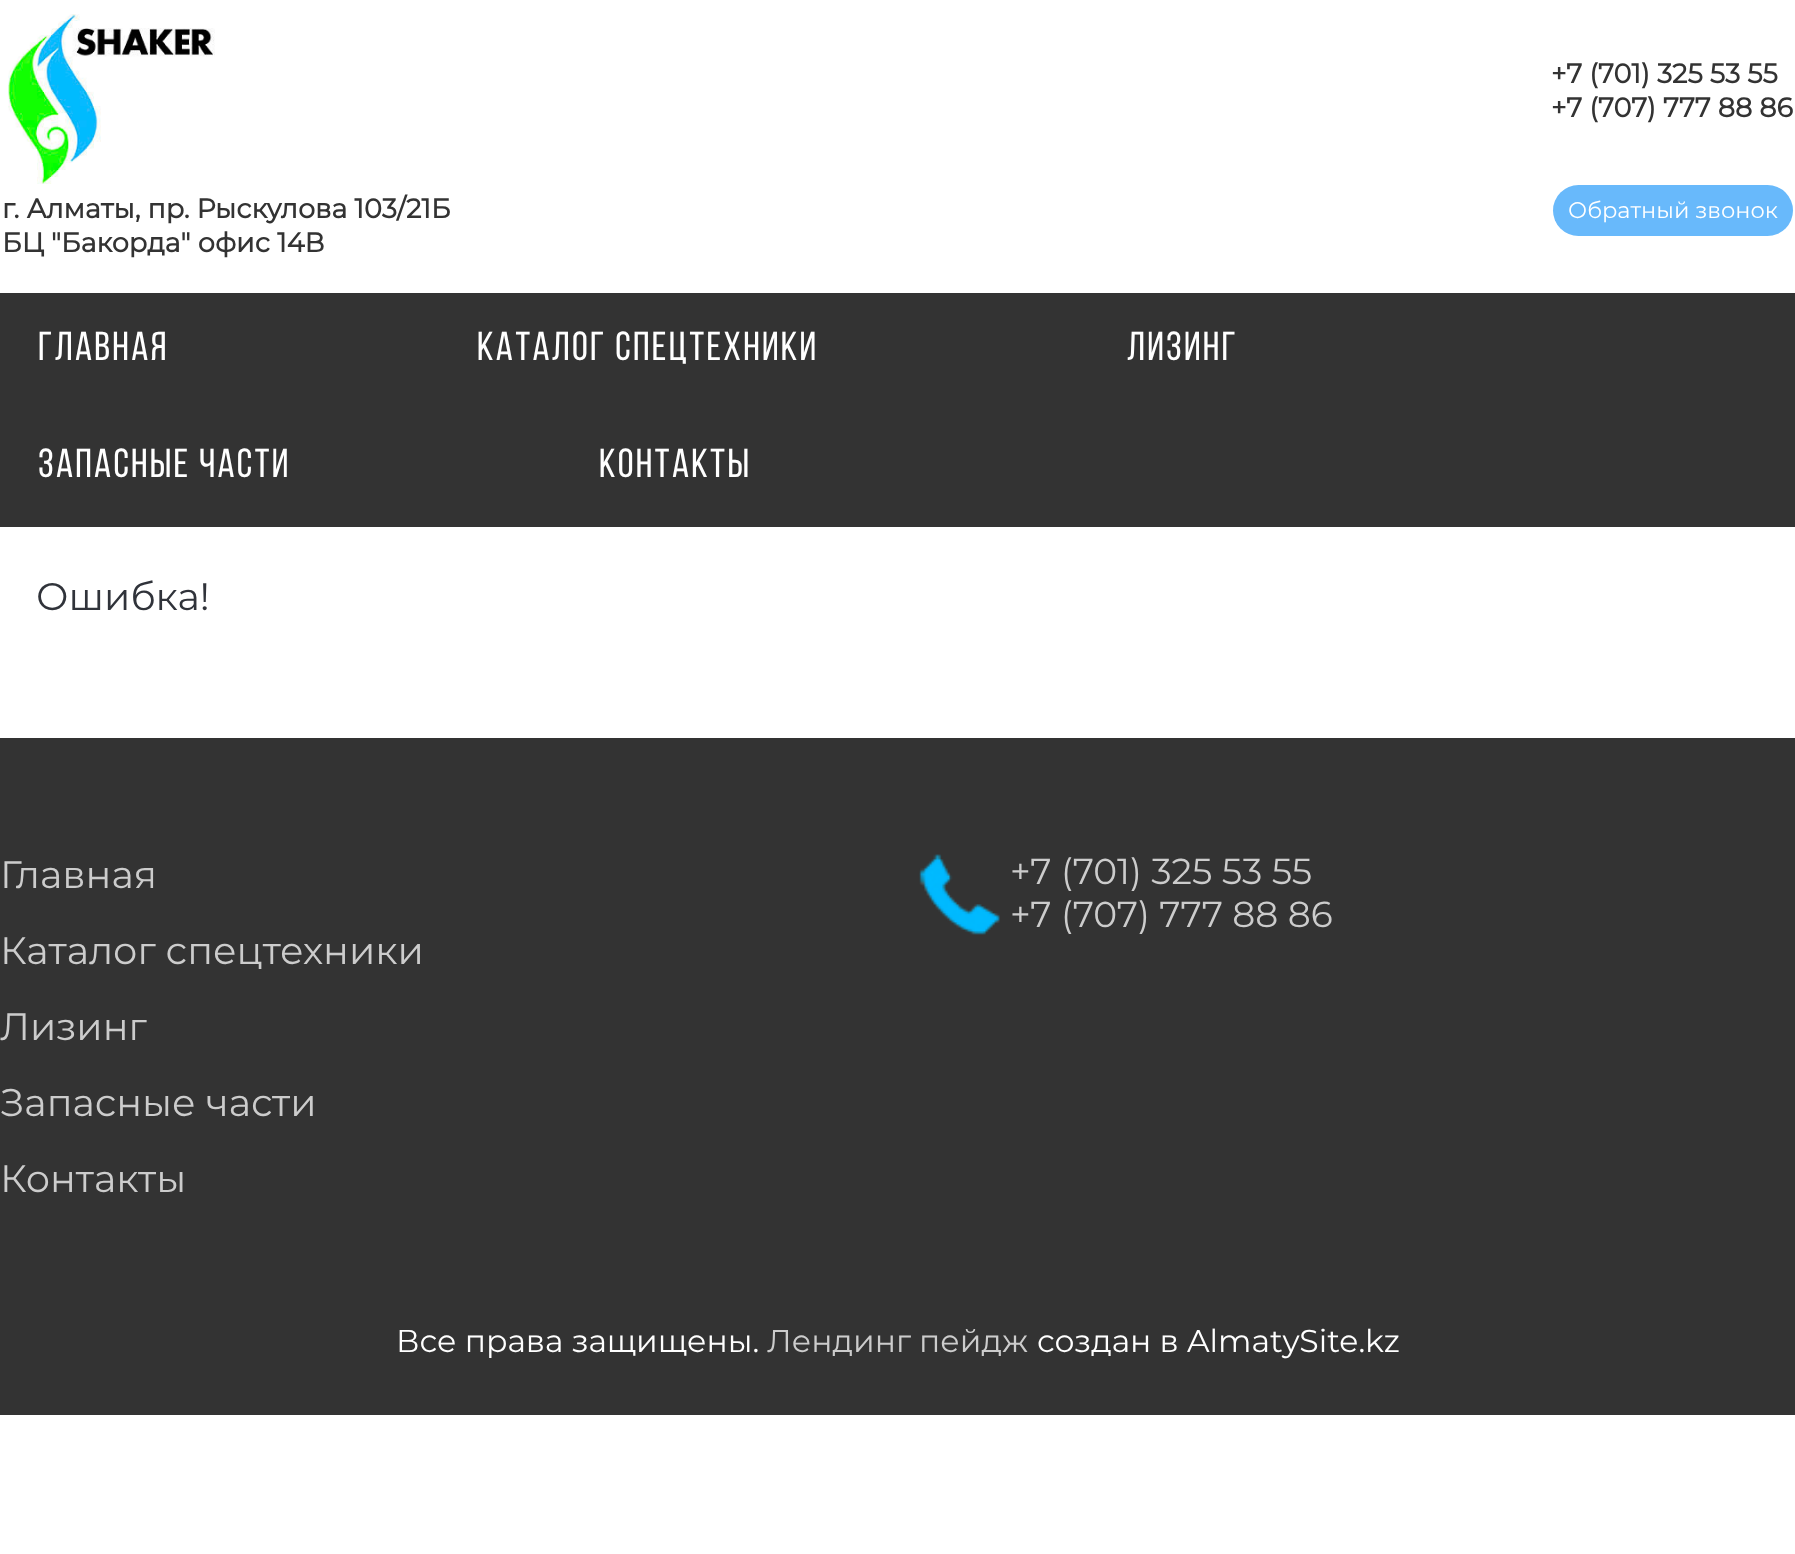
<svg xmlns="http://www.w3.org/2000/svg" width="1795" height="1554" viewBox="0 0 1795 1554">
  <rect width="100%" height="100%" fill="#ffffff"/>
  <image x="8" y="14" width="207" height="170" href="img1.png"/>
  <text x="1551" y="83" font-family="Montserrat" font-size="27" font-weight="bold" fill="#333333">+7 (701) 325 53 55</text>
  <text x="1551" y="117" font-family="Montserrat" font-size="27" font-weight="bold" fill="#333333">+7 (707) 777 88 86</text>
  <text x="2" y="218" font-family="Montserrat" font-size="27" font-weight="bold" fill="#333333">г. Алматы, пр. Рыскулова 103/21Б</text>
  <text x="2" y="252" font-family="Montserrat" font-size="27" font-weight="bold" fill="#333333">БЦ "Бакорда" офис 14В</text>
  <rect x="1553" y="185" width="240" height="51" rx="25.5" fill="#68b9fb"/>
  <text x="1568" y="218" font-family="Montserrat" font-size="22.5" fill="#ffffff">Обратный звонок</text>
  <rect x="0" y="293" width="1795" height="234" fill="#333333"/>
  <text x="38" y="360" font-family="Bebas Neue" font-size="40.5" letter-spacing="2.25" fill="#ffffff">ГЛАВНАЯ</text>
  <text x="477" y="360" font-family="Bebas Neue" font-size="40.5" letter-spacing="2.25" fill="#ffffff">КАТАЛОГ СПЕЦТЕХНИКИ</text>
  <text x="1127" y="360" font-family="Bebas Neue" font-size="40.5" letter-spacing="2.25" fill="#ffffff">ЛИЗИНГ</text>
  <text x="38" y="477" font-family="Bebas Neue" font-size="40.5" letter-spacing="2.25" fill="#ffffff">ЗАПАСНЫЕ ЧАСТИ</text>
  <text x="599" y="477" font-family="Bebas Neue" font-size="40.5" letter-spacing="2.25" fill="#ffffff">КОНТАКТЫ</text>
  <text x="36" y="610" font-family="Montserrat" font-size="38.25" fill="#30333a">Ошибка!</text>
  <rect x="0" y="738" width="1795" height="677" fill="#333333"/>
  <text x="0" y="888" font-family="Montserrat" font-size="38.25" fill="#cccccc">Главная</text>
  <text x="0" y="964" font-family="Montserrat" font-size="38.25" fill="#cccccc">Каталог спецтехники</text>
  <text x="0" y="1040" font-family="Montserrat" font-size="38.25" fill="#cccccc">Лизинг</text>
  <text x="0" y="1116" font-family="Montserrat" font-size="38.25" fill="#cccccc">Запасные части</text>
  <text x="0" y="1192" font-family="Montserrat" font-size="38.25" fill="#cccccc">Контакты</text>
  <image x="919" y="854" width="81" height="81" href="img2.png"/>
  <text x="1010" y="884" font-family="Montserrat" font-size="36" fill="#cccccc">+7 (701) 325 53 55</text>
  <text x="1010" y="927" font-family="Montserrat" font-size="36" fill="#cccccc">+7 (707) 777 88 86</text>
  <text x="396" y="1352" font-family="Montserrat" font-size="31.5" fill="#ffffff">Все права защищены.</text>
  <text x="767" y="1352" font-family="Montserrat" font-size="31.5" fill="#cccccc">Лендинг пейдж</text>
  <text x="1037" y="1352" font-family="Montserrat" font-size="31.5" fill="#ffffff">создан в AlmatySite.kz</text>
</svg>
